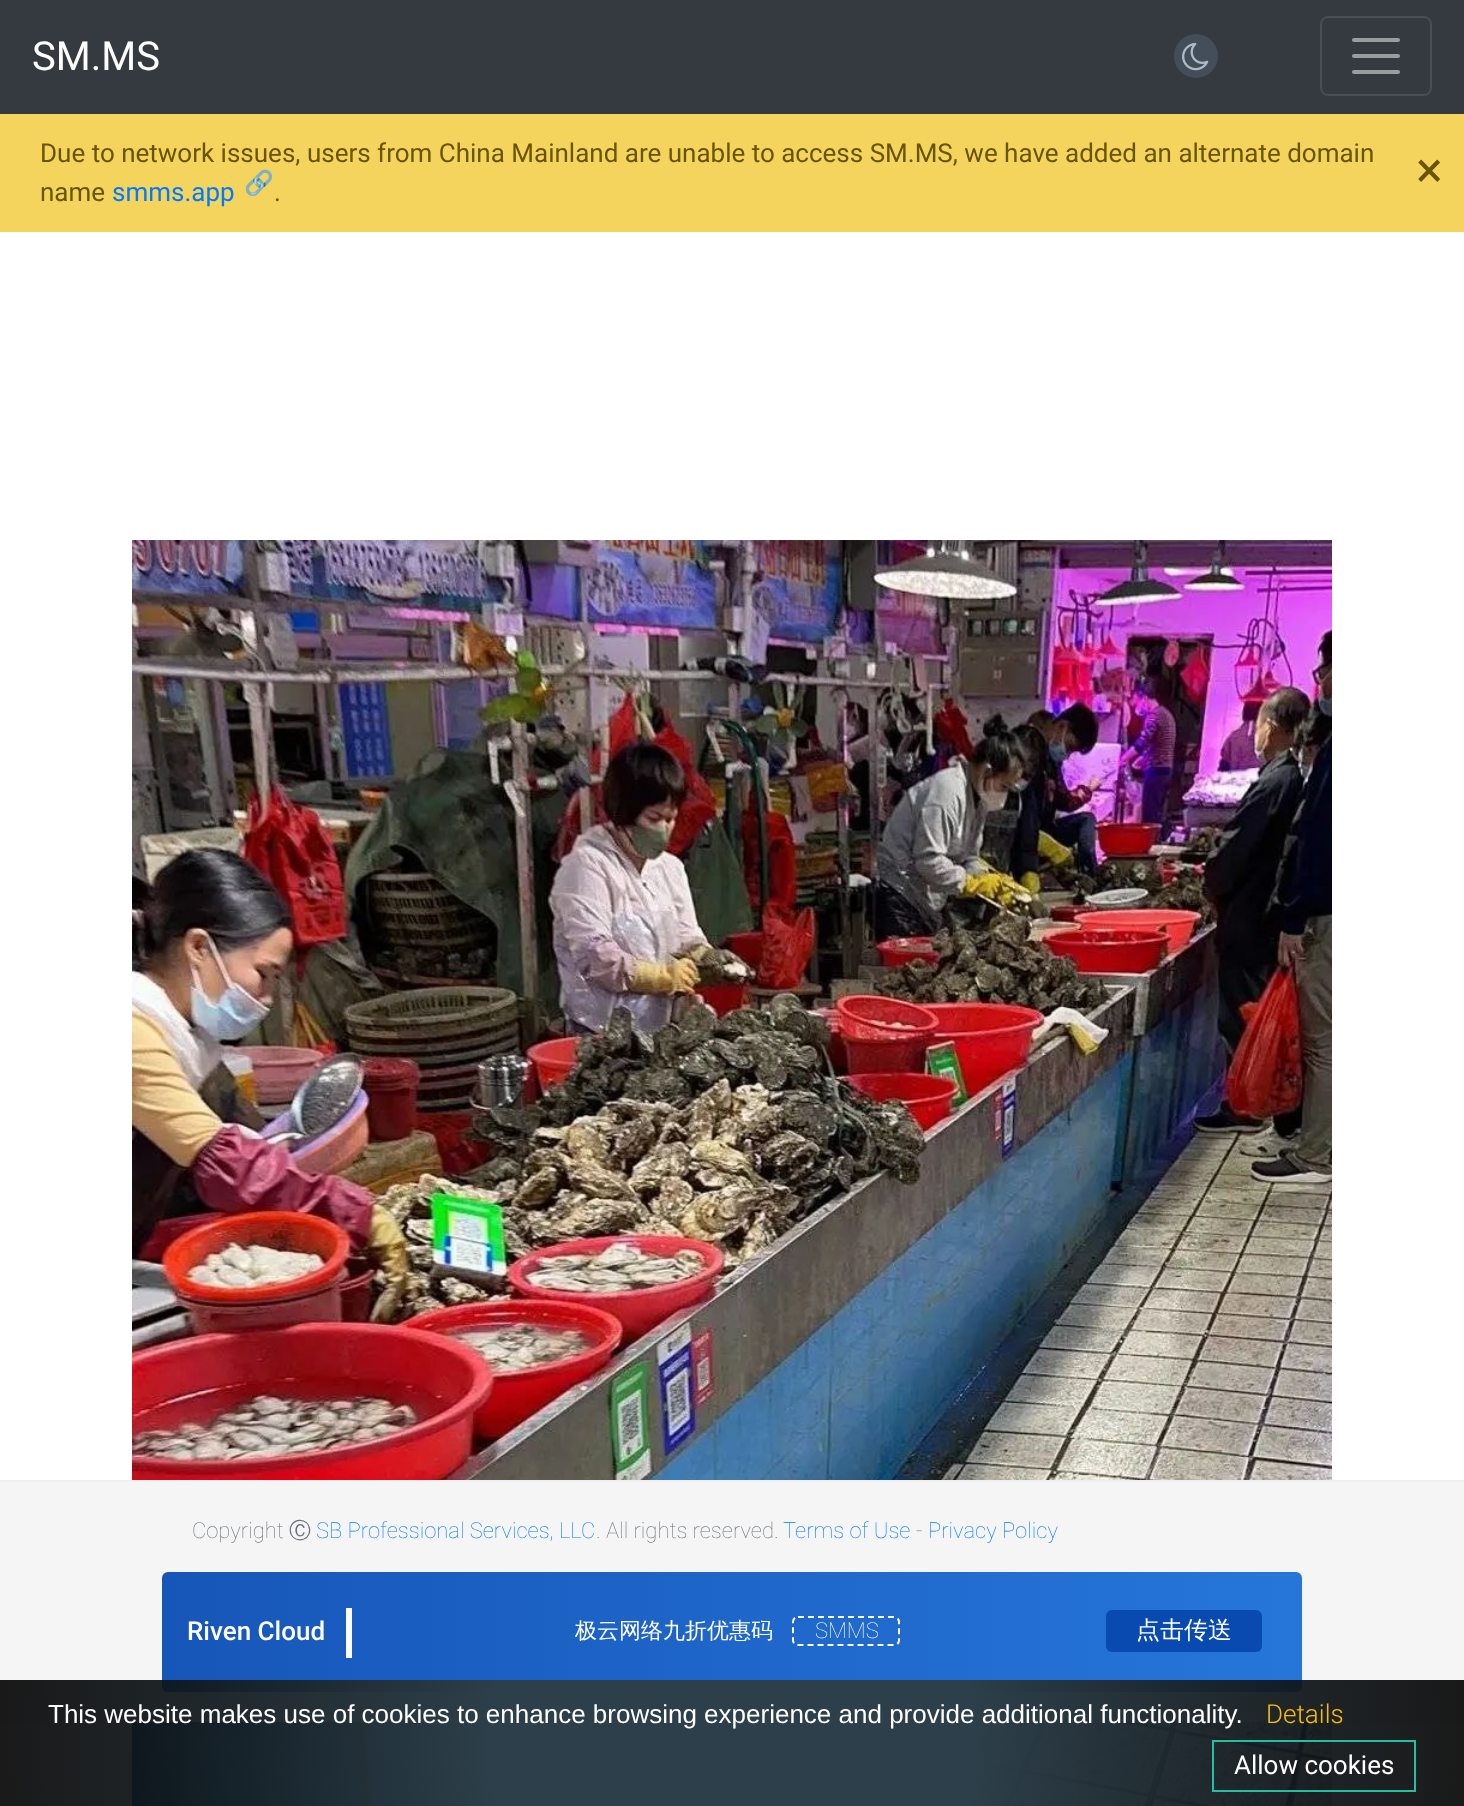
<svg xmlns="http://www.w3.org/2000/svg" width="1464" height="1806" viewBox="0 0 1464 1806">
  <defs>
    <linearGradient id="g1" gradientUnits="userSpaceOnUse" x1="1302" y1="1632" x2="162" y2="1632"><stop offset="0" stop-color="#2676da"/><stop offset="1" stop-color="#1756b9"/></linearGradient>
    <radialGradient id="g2" gradientUnits="userSpaceOnUse" cx="732" cy="1743" r="735"><stop offset="0.33" stop-color="#2d3f4a"/><stop offset="1" stop-color="#000000" stop-opacity="0.9"/></radialGradient>
  </defs>
  <rect width="100%" height="100%" fill="#ffffff"/>
  <rect x="0" y="0" width="1464" height="114" fill="#343a40"/>
  <text x="32" y="70" font-family="Roboto" font-size="40" fill="#ffffff">SM.MS</text>
  <circle cx="1196" cy="56" r="22" fill="#444e58"/>
  <image x="1182" y="42" width="27" height="29" href="img1.png"/>
  <rect x="1321" y="17" width="110" height="78" rx="7" fill="none" stroke="#484e53" stroke-width="2"/>
  <path d="M1354 40H1398M1354 56H1398M1354 72H1398" fill="none" stroke="#9a9da0" stroke-width="4" stroke-linecap="round"/>
  <rect x="0" y="114" width="1464" height="118" fill="#f4d45d"/>
  <text x="40" y="162" font-family="Roboto" font-size="26" fill="#6a5400">Due to network issues, users from China Mainland are unable to access SM.MS, we have added an alternate domain</text>
  <text x="40" y="201" font-family="Roboto" font-size="26" fill="#6a5400">name</text>
  <text x="112" y="201" font-family="Roboto" font-size="26" fill="#007bff">smms.app</text>
  <text x="244" y="191" font-family="Noto Color Emoji" font-size="24" fill="#007bff">🔗</text>
  <text x="274" y="201" font-family="Roboto" font-size="26" fill="#6a5400">.</text>
  <text x="1416" y="187" font-family="Roboto" font-size="50" fill="#6a5400">×</text>
  <image x="132" y="540" width="1200" height="1266" href="img2.png"/>
  <rect x="0" y="1482" width="1464" height="240" fill="#f5f5f5"/>
  <rect x="0" y="1480" width="1464" height="2" fill="#efefef"/>
  <text x="192" y="1538" font-family="Roboto" font-size="22" font-weight="100" fill="#6c757d">Copyright</text>
  <text x="289" y="1538" font-family="WenQuanYi Zen Hei" font-size="22" font-weight="500" fill="#6c757d">Ⓒ</text>
  <text x="316" y="1538" font-family="Roboto" font-size="22" font-weight="100" fill="#007bff">SB Professional Services, LLC</text>
  <text x="596" y="1538" font-family="Roboto" font-size="22" font-weight="100" fill="#6c757d">. All rights reserved.</text>
  <text x="783" y="1538" font-family="Roboto" font-size="22" font-weight="100" fill="#007bff">Terms of Use</text>
  <text x="916" y="1538" font-family="Roboto" font-size="22" font-weight="100" fill="#6c757d">-</text>
  <text x="928" y="1538" font-family="Roboto" font-size="22" font-weight="100" fill="#007bff">Privacy Policy</text>
  <rect x="162" y="1572" width="1140" height="120" rx="6" fill="url(#g1)"/>
  <rect x="346" y="1608" width="6" height="50" fill="#ffffff"/>
  <text x="187" y="1640" font-family="Roboto" font-size="26" font-weight="500" fill="#ffffff">Riven Cloud</text>
  <text x="575" y="1638" font-family="WenQuanYi Zen Hei" font-size="22" font-weight="500" fill="#ffffff">极云网络九折优惠码</text>
  <path d="M798 1617H894C897 1617 899 1619 899 1622V1640C899 1643 897 1645 894 1645H798C795 1645 793 1643 793 1640V1622C793 1619 795 1617 798 1617Z" fill="none" stroke="#ffffff" stroke-width="2" stroke-dasharray="6 4"/>
  <text x="815" y="1638" font-family="Roboto" font-size="22" font-weight="100" fill="#ffffff">SMMS</text>
  <rect x="1106" y="1610" width="156" height="42" rx="6" fill="#094ab1"/>
  <text x="1136" y="1638" font-family="WenQuanYi Zen Hei" font-size="24" font-weight="500" fill="#ffffff">点击传送</text>
  <rect x="0" y="1680" width="1464" height="126" fill="url(#g2)"/>
  <text x="48" y="1723" font-family="Liberation Sans" font-size="26" fill="#ffffff">This website makes use of cookies to enhance browsing experience and provide additional functionality.</text>
  <text x="1266" y="1723" font-family="Roboto" font-size="26" font-weight="300" fill="#fabc09">Details</text>
  <rect x="1213" y="1741" width="202" height="50" fill="none" stroke="#25bea0" stroke-width="2"/>
  <text x="1234" y="1774" font-family="Roboto" font-size="26" fill="#ffffff">Allow cookies</text>
</svg>
